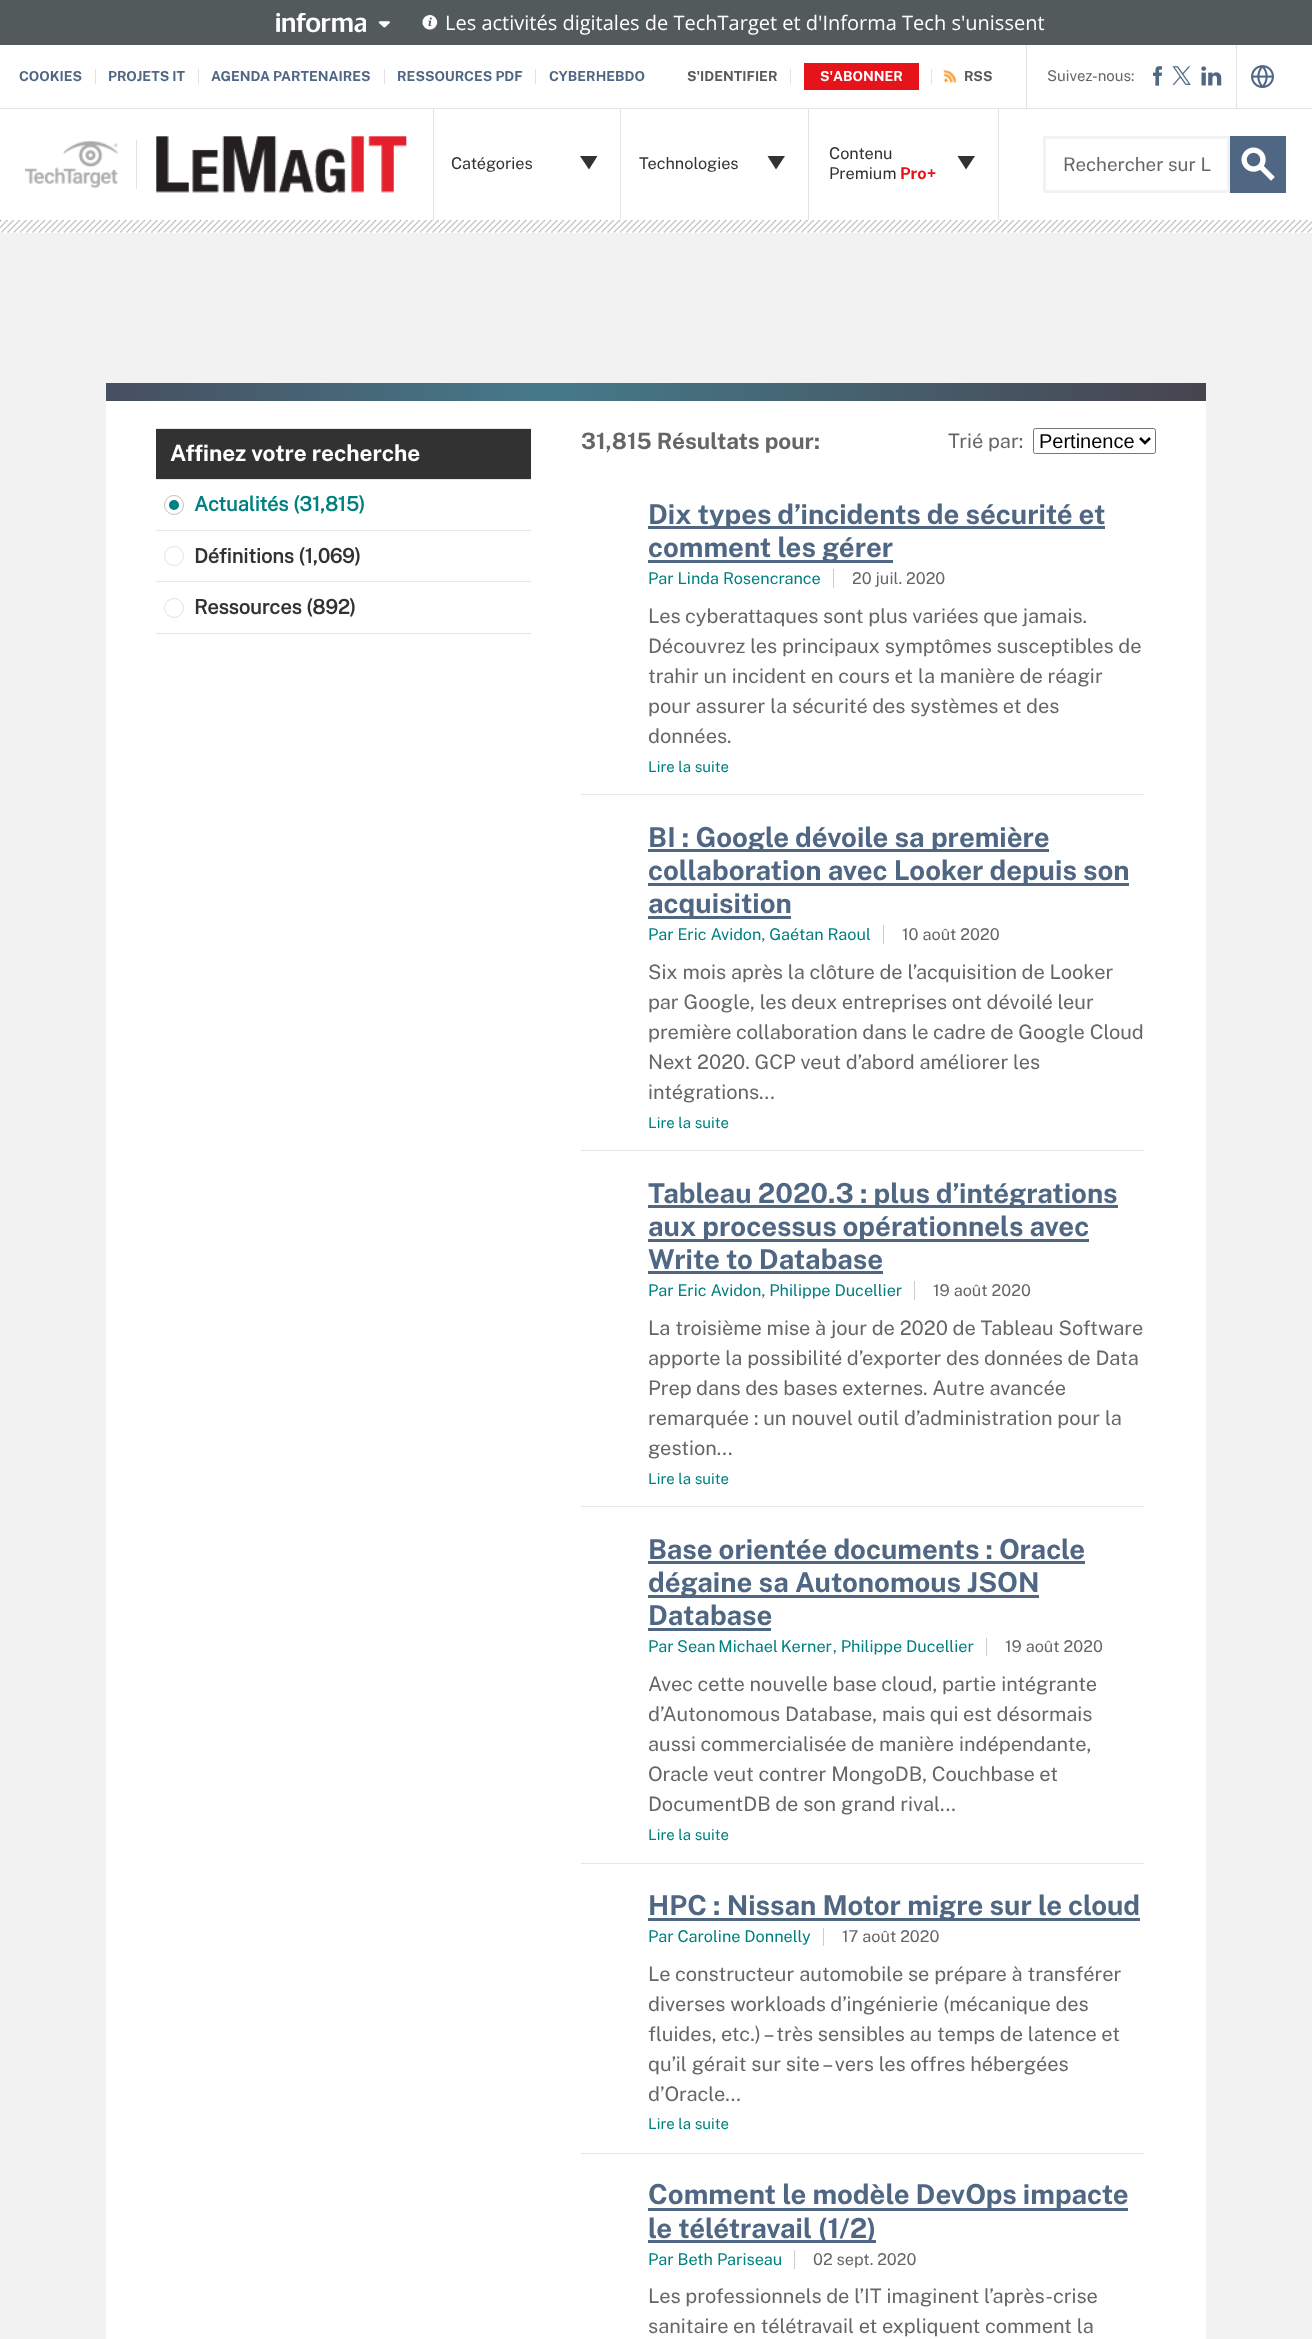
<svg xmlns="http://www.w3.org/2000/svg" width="1312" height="2339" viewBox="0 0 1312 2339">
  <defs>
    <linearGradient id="g1" gradientUnits="userSpaceOnUse" x1="106" y1="392" x2="1206" y2="392"><stop offset="0" stop-color="#475061"/><stop offset="0.01" stop-color="#475061"/><stop offset="0.4" stop-color="#457a8a"/><stop offset="1" stop-color="#47444f"/></linearGradient>
  </defs>
  <rect width="100%" height="100%" fill="#f2f2f2"/>
  <rect x="0" y="0" width="1312" height="45" fill="#525a5c"/>
  <image x="276" y="13" width="90" height="20" href="img1.png"/>
  <image x="378" y="21" width="12" height="7" href="img2.png"/>
  <image x="422" y="15" width="16" height="15" href="img3.png"/>
  <text x="445" y="30" font-family="Open Sans" font-size="20" fill="#ffffff">Les activités digitales de TechTarget et d'Informa Tech s'unissent</text>
  <rect x="0" y="45" width="1312" height="188" fill="#ffffff"/>
  <image x="0" y="220" width="1312" height="13" href="img4.png"/>
  <text x="19" y="81" font-family="Public Sans" font-size="13.75" font-weight="bold" fill="#506784">COOKIES</text>
  <rect x="95" y="69" width="1" height="15" fill="#e3e3e3"/>
  <text x="108" y="81" font-family="Public Sans" font-size="13.75" font-weight="bold" fill="#506784">PROJETS IT</text>
  <rect x="198" y="69" width="1" height="15" fill="#e3e3e3"/>
  <text x="211" y="81" font-family="Public Sans" font-size="13.75" font-weight="bold" fill="#506784">AGENDA PARTENAIRES</text>
  <rect x="384" y="69" width="1" height="15" fill="#e3e3e3"/>
  <text x="397" y="81" font-family="Public Sans" font-size="13.75" font-weight="bold" fill="#506784">RESSOURCES PDF</text>
  <rect x="535" y="69" width="1" height="15" fill="#e3e3e3"/>
  <text x="549" y="81" font-family="Public Sans" font-size="13.75" font-weight="bold" fill="#506784">CYBERHEBDO</text>
  <text x="687" y="81" font-family="Public Sans" font-size="13.75" font-weight="bold" fill="#58595b">S'IDENTIFIER</text>
  <rect x="790" y="69" width="1" height="15" fill="#e3e3e3"/>
  <rect x="804" y="63" width="115" height="27" fill="#e7131a"/>
  <text x="820" y="81" font-family="Public Sans" font-size="13.75" font-weight="bold" fill="#ffffff">S'ABONNER</text>
  <image x="943" y="69" width="14" height="14" href="img5.png"/>
  <text x="964" y="81" font-family="Public Sans" font-size="13.75" font-weight="bold" fill="#58595b">RSS</text>
  <rect x="931" y="69" width="1" height="15" fill="#e3e3e3"/>
  <rect x="1026" y="45" width="1" height="63" fill="#e3e3e3"/>
  <text x="1047" y="81" font-family="Public Sans" font-size="15" fill="#666666">Suivez-nous:</text>
  <image x="1152" y="66" width="10" height="20" href="img6.png"/>
  <image x="1172" y="66" width="19" height="19" href="img7.png"/>
  <image x="1201" y="66" width="21" height="20" href="img8.png"/>
  <rect x="434" y="108" width="878" height="1" fill="#e3e3e3"/>
  <rect x="1236" y="45" width="1" height="64" fill="#e3e3e3"/>
  <image x="1251" y="65" width="23" height="23" href="img9.png"/>
  <rect x="620" y="109" width="1" height="111" fill="#e3e3e3"/>
  <text x="451" y="169" font-family="Public Sans" font-size="16.25" fill="#323232">Catégories</text>
  <path d="M597.5 156L589 169.5L580 156Z" fill="#323232"/>
  <rect x="808" y="109" width="1" height="111" fill="#e3e3e3"/>
  <text x="639" y="169" font-family="Public Sans" font-size="16.25" fill="#323232">Technologies</text>
  <path d="M785 156L776 169.5L767.5 156Z" fill="#323232"/>
  <rect x="998" y="109" width="1" height="111" fill="#e3e3e3"/>
  <text x="829" y="159" font-family="Public Sans" font-size="16.25" fill="#323232">Contenu</text>
  <text x="829" y="179" font-family="Public Sans" font-size="16.25" fill="#323232">Premium</text>
  <text x="900" y="179" font-family="Public Sans" font-size="16.25" font-weight="bold" fill="#e7131a">Pro+</text>
  <path d="M975 156L966 169.5L957.5 156Z" fill="#323232"/>
  <rect x="0" y="108" width="434" height="1" fill="#e3e3e3"/>
  <image x="25" y="141" width="93" height="47" href="img10.png"/>
  <rect x="136" y="140" width="1" height="49" fill="#e3e3e3"/>
  <image x="156" y="136" width="251" height="57" href="img11.png"/>
  <rect x="433" y="108" width="1" height="112" fill="#e3e3e3"/>
  <rect x="1044.5" y="137.5" width="184" height="54" fill="none" stroke="#f2f2f2" stroke-width="3"/>
  <text x="1063" y="171" font-family="Public Sans" font-size="18.75" fill="#666666">Rechercher sur L</text>
  <rect x="1230" y="136" width="56" height="57" fill="#506784"/>
  <image x="1241" y="147" width="34" height="34" href="img12.png"/>
  <rect x="106" y="401" width="1100" height="1938" fill="#ffffff"/>
  <rect x="106" y="383" width="1100" height="18" fill="url(#g1)"/>
  <rect x="156" y="429" width="375" height="50" fill="#323232"/>
  <rect x="156" y="428" width="375" height="1" fill="#e6e6e6"/>
  <rect x="156" y="479" width="375" height="1" fill="#e6e6e6"/>
  <text x="170" y="461" font-family="Public Sans" font-size="22.5" font-weight="bold" fill="#ffffff">Affinez votre recherche</text>
  <rect x="156" y="530" width="375" height="1" fill="#e6e6e6"/>
  <circle cx="174" cy="505" r="9.5" fill="none" stroke="#c6c2bf"/>
  <text x="194" y="511" font-family="'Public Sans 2'" font-size="20" font-weight="bold" fill="#008080">Actualités (31,815)</text>
  <circle cx="174" cy="505" r="5" fill="#008080"/>
  <rect x="156" y="581" width="375" height="1" fill="#e6e6e6"/>
  <circle cx="174" cy="556" r="9.5" fill="none" stroke="#e3e3e3"/>
  <text x="194" y="563" font-family="'Public Sans 2'" font-size="20" font-weight="bold" fill="#323232">Définitions (1,069)</text>
  <rect x="156" y="633" width="375" height="1" fill="#e6e6e6"/>
  <circle cx="174" cy="608" r="9.5" fill="none" stroke="#e3e3e3"/>
  <text x="194" y="614" font-family="'Public Sans 2'" font-size="20" font-weight="bold" fill="#323232">Ressources (892)</text>
  <text x="581" y="449" font-family="Public Sans" font-size="22.5" font-weight="bold" fill="#666666">31,815 Résultats pour:</text>
  <text x="948" y="448" font-family="Public Sans" font-size="20" fill="#666666">Trié par:</text>
  <rect x="1033.5" y="428.5" width="122" height="25" rx="2" fill="none" stroke="#767676"/>
  <path d="M1140 438L1145 443L1150 438" fill="none" stroke="#000000" stroke-width="2.5"/>
  <text x="1039" y="448" font-family="Liberation Sans" font-size="20" fill="#000000">Pertinence</text>
  <rect x="581" y="794" width="563" height="1" fill="#e6e6e6"/>
  <rect x="648" y="526" width="457" height="3" fill="#506784"/>
  <text x="648" y="524" font-family="Public Sans" font-size="27.5" font-weight="bold" fill="#506784">Dix types d’incidents de sécurité et</text>
  <rect x="648" y="560" width="245" height="3" fill="#506784"/>
  <text x="648" y="557" font-family="Public Sans" font-size="27.5" font-weight="bold" fill="#506784">comment les gérer</text>
  <text x="648" y="584" font-family="Public Sans" font-size="16.25" fill="#008080">Par Linda Rosencrance</text>
  <rect x="833" y="569" width="1" height="19" fill="#cccccc"/>
  <text x="852" y="584" font-family="Public Sans" font-size="16.25" fill="#666666">20 juil. 2020</text>
  <text x="648" y="623" font-family="Public Sans" font-size="20" fill="#666666">Les cyberattaques sont plus variées que jamais.</text>
  <text x="648" y="653" font-family="Public Sans" font-size="20" fill="#666666">Découvrez les principaux symptômes susceptibles de</text>
  <text x="648" y="683" font-family="Public Sans" font-size="20" fill="#666666">trahir un incident en cours et la manière de réagir</text>
  <text x="648" y="713" font-family="Public Sans" font-size="20" fill="#666666">pour assurer la sécurité des systèmes et des</text>
  <text x="648" y="743" font-family="Public Sans" font-size="20" fill="#666666">données.</text>
  <text x="648" y="772" font-family="Public Sans" font-size="15" fill="#008080">Lire la suite</text>
  <rect x="581" y="1150" width="563" height="1" fill="#e6e6e6"/>
  <rect x="648" y="849" width="401" height="3" fill="#506784"/>
  <text x="648" y="847" font-family="Public Sans" font-size="27.5" font-weight="bold" fill="#506784">BI : Google dévoile sa première</text>
  <rect x="648" y="883" width="481" height="3" fill="#506784"/>
  <text x="648" y="880" font-family="Public Sans" font-size="27.5" font-weight="bold" fill="#506784">collaboration avec Looker depuis son</text>
  <rect x="648" y="916" width="143" height="3" fill="#506784"/>
  <text x="648" y="913" font-family="Public Sans" font-size="27.5" font-weight="bold" fill="#506784">acquisition</text>
  <text x="648" y="940" font-family="Public Sans" font-size="16.25" fill="#008080">Par Eric Avidon, Gaétan Raoul</text>
  <rect x="883" y="925" width="1" height="19" fill="#cccccc"/>
  <text x="902" y="940" font-family="Public Sans" font-size="16.25" fill="#666666">10 août 2020</text>
  <text x="648" y="979" font-family="Public Sans" font-size="20" fill="#666666">Six mois après la clôture de l’acquisition de Looker</text>
  <text x="648" y="1009" font-family="Public Sans" font-size="20" fill="#666666">par Google, les deux entreprises ont dévoilé leur</text>
  <text x="648" y="1039" font-family="Public Sans" font-size="20" fill="#666666">première collaboration dans le cadre de Google Cloud</text>
  <text x="648" y="1069" font-family="Public Sans" font-size="20" fill="#666666">Next 2020. GCP veut d’abord améliorer les</text>
  <text x="648" y="1099" font-family="Public Sans" font-size="20" fill="#666666">intégrations...</text>
  <text x="648" y="1128" font-family="Public Sans" font-size="15" fill="#008080">Lire la suite</text>
  <rect x="581" y="1506" width="563" height="1" fill="#e6e6e6"/>
  <rect x="648" y="1205" width="470" height="3" fill="#506784"/>
  <text x="648" y="1203" font-family="Public Sans" font-size="27.5" font-weight="bold" fill="#506784">Tableau 2020.3 : plus d’intégrations</text>
  <rect x="648" y="1239" width="441" height="3" fill="#506784"/>
  <text x="648" y="1236" font-family="Public Sans" font-size="27.5" font-weight="bold" fill="#506784">aux processus opérationnels avec</text>
  <text x="648" y="1269" font-family="Public Sans" font-size="27.5" font-weight="bold" fill="#506784">Write to Database</text>
  <rect x="648" y="1271" width="235" height="3" fill="#506784"/>
  <text x="648" y="1296" font-family="Public Sans" font-size="16.25" fill="#008080">Par Eric Avidon, Philippe Ducellier</text>
  <rect x="914" y="1281" width="1" height="19" fill="#cccccc"/>
  <text x="933" y="1296" font-family="Public Sans" font-size="16.25" fill="#666666">19 août 2020</text>
  <text x="648" y="1335" font-family="Public Sans" font-size="20" fill="#666666">La troisième mise à jour de 2020 de Tableau Software</text>
  <text x="648" y="1365" font-family="Public Sans" font-size="20" fill="#666666">apporte la possibilité d’exporter des données de Data</text>
  <text x="648" y="1395" font-family="Public Sans" font-size="20" fill="#666666">Prep dans des bases externes. Autre avancée</text>
  <text x="648" y="1425" font-family="Public Sans" font-size="20" fill="#666666">remarquée : un nouvel outil d’administration pour la</text>
  <text x="648" y="1455" font-family="Public Sans" font-size="20" fill="#666666">gestion...</text>
  <text x="648" y="1484" font-family="Public Sans" font-size="15" fill="#008080">Lire la suite</text>
  <rect x="581" y="1863" width="563" height="1" fill="#e6e6e6"/>
  <text x="648" y="1559" font-family="Public Sans" font-size="27.5" font-weight="bold" fill="#506784">Base orientée documents : Oracle</text>
  <rect x="648" y="1561" width="437" height="3" fill="#506784"/>
  <rect x="648" y="1595" width="391" height="3" fill="#506784"/>
  <text x="648" y="1592" font-family="Public Sans" font-size="27.5" font-weight="bold" fill="#506784">dégaine sa Autonomous JSON</text>
  <text x="648" y="1625" font-family="Public Sans" font-size="27.5" font-weight="bold" fill="#506784">Database</text>
  <rect x="648" y="1628" width="123" height="3" fill="#506784"/>
  <text x="648" y="1652" font-family="Public Sans" font-size="16.25" fill="#008080">Par</text>
  <text x="677" y="1652" word-spacing="-1" font-family="Public Sans" font-size="16.25" fill="#008080">Sean Michael Kerner</text>
  <text x="833" y="1652" font-family="Public Sans" font-size="16.25" fill="#008080">, Philippe Ducellier</text>
  <rect x="986" y="1638" width="1" height="18" fill="#cccccc"/>
  <text x="1005" y="1652" font-family="Public Sans" font-size="16.25" fill="#666666">19 août 2020</text>
  <text x="648" y="1691" font-family="Public Sans" font-size="20" fill="#666666">Avec cette nouvelle base cloud, partie intégrante</text>
  <text x="648" y="1721" font-family="Public Sans" font-size="20" fill="#666666">d’Autonomous Database, mais qui est désormais</text>
  <text x="648" y="1751" font-family="Public Sans" font-size="20" fill="#666666">aussi commercialisée de manière indépendante,</text>
  <text x="648" y="1781" font-family="Public Sans" font-size="20" fill="#666666">Oracle veut contrer MongoDB, Couchbase et</text>
  <text x="648" y="1811" font-family="Public Sans" font-size="20" fill="#666666">DocumentDB de son grand rival...</text>
  <text x="648" y="1840" font-family="Public Sans" font-size="15" fill="#008080">Lire la suite</text>
  <rect x="581" y="2153" width="563" height="1" fill="#e6e6e6"/>
  <rect x="648" y="1918" width="492" height="3" fill="#506784"/>
  <text x="648" y="1915" font-family="Public Sans" font-size="27.5" font-weight="bold" fill="#506784">HPC : Nissan Motor migre sur le cloud</text>
  <text x="648" y="1942" font-family="Public Sans" font-size="16.25" fill="#008080">Par Caroline Donnelly</text>
  <rect x="823" y="1928" width="1" height="18" fill="#cccccc"/>
  <text x="842" y="1942" font-family="Public Sans" font-size="16.25" fill="#666666">17 août 2020</text>
  <text x="648" y="1981" font-family="Public Sans" font-size="20" fill="#666666">Le constructeur automobile se prépare à transférer</text>
  <text x="648" y="2011" font-family="Public Sans" font-size="20" fill="#666666">diverses workloads d’ingénierie (mécanique des</text>
  <text x="648" y="2041" font-family="Public Sans" font-size="20" fill="#666666">fluides, etc.) – très sensibles au temps de latence et</text>
  <text x="648" y="2071" font-family="Public Sans" font-size="20" fill="#666666">qu’il gérait sur site – vers les offres hébergées</text>
  <text x="648" y="2101" font-family="Public Sans" font-size="20" fill="#666666">d’Oracle...</text>
  <text x="648" y="2129" font-family="Public Sans" font-size="15" fill="#008080">Lire la suite</text>
  <rect x="648" y="2208" width="480" height="3" fill="#506784"/>
  <text x="648" y="2204" font-family="Public Sans" font-size="27.5" font-weight="bold" fill="#506784">Comment le modèle DevOps impacte</text>
  <rect x="648" y="2240" width="228" height="3" fill="#506784"/>
  <text x="648" y="2238" font-family="Public Sans" font-size="27.5" font-weight="bold" fill="#506784">le télétravail (1/2)</text>
  <text x="648" y="2265" font-family="Public Sans" font-size="16.25" fill="#008080">Par Beth Pariseau</text>
  <rect x="794" y="2250" width="1" height="19" fill="#cccccc"/>
  <text x="813" y="2265" font-family="Public Sans" font-size="16.25" fill="#666666">02 sept. 2020</text>
  <text x="648" y="2303" font-family="Public Sans" font-size="20" fill="#666666">Les professionnels de l’IT imaginent l’après-crise</text>
  <text x="648" y="2333" font-family="Public Sans" font-size="20" fill="#666666">sanitaire en télétravail et expliquent comment la</text>
</svg>
